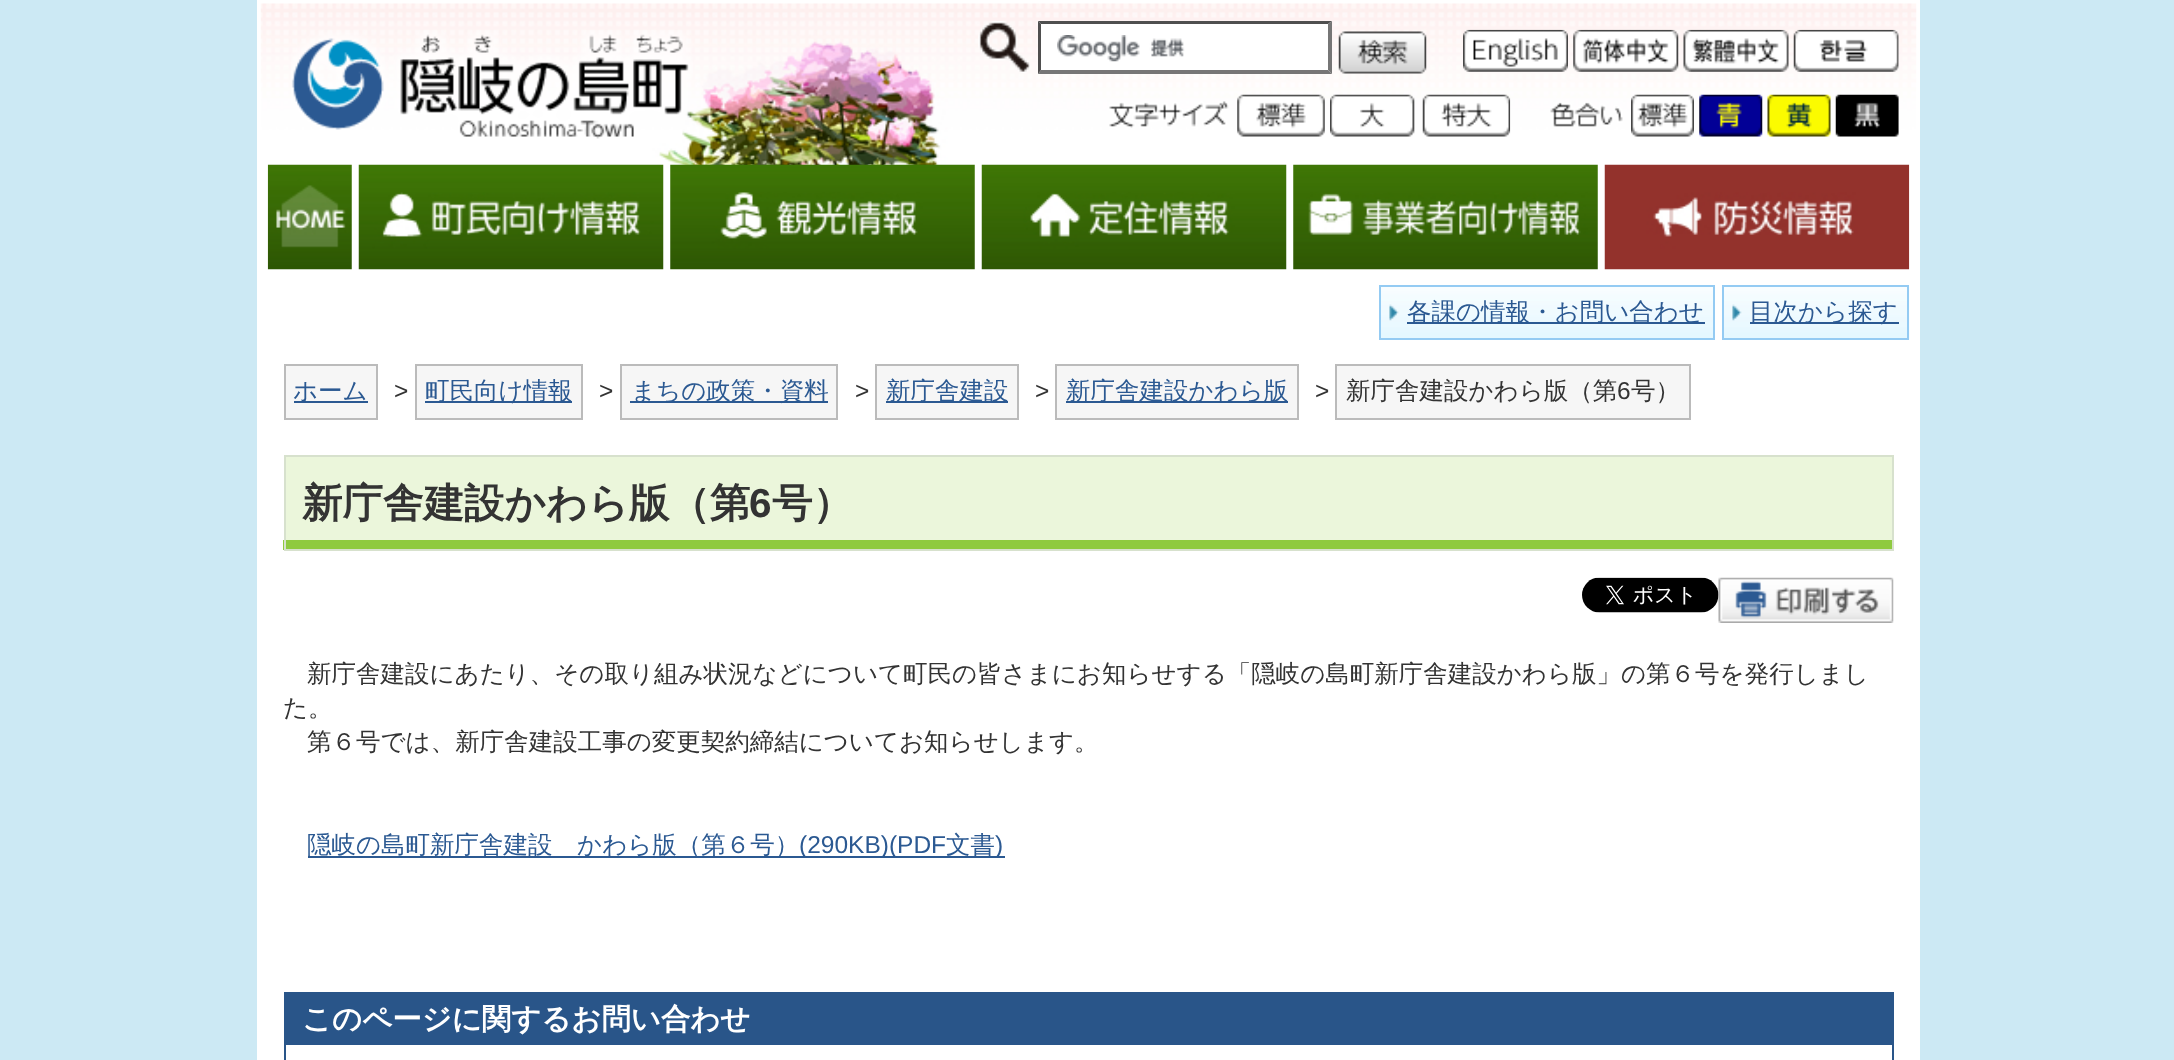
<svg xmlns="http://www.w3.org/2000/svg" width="2174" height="1060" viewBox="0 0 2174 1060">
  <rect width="100%" height="100%" fill="#cce9f4"/>
  <rect x="257" y="0" width="1663" height="1060" fill="#ffffff"/>
  <image x="260" y="3" width="1657" height="165" href="img1.png"/>
  <image x="291" y="30" width="402" height="109" href="img2.png"/>
  <image x="978" y="21" width="52" height="52" href="img3.png"/>
  <rect x="1038" y="21" width="294" height="53" fill="#ffffff"/>
  <image x="1057" y="35" width="128" height="27" href="img4.png"/>
  <path d="M1038 21H1332L1328 24H1041Z" fill="#4f4f4f"/>
  <path d="M1332 21V74L1328 70V24Z" fill="#767676"/>
  <path d="M1332 74H1038L1041 70H1328Z" fill="#767676"/>
  <path d="M1038 74V21L1041 24V70Z" fill="#4f4f4f"/>
  <image x="1338" y="31" width="89" height="43" href="img5.png"/>
  <image x="1463" y="29" width="105" height="43" href="img6.png"/>
  <image x="1573" y="29" width="106" height="43" href="img7.png"/>
  <image x="1683" y="29" width="106" height="43" href="img8.png"/>
  <image x="1793" y="29" width="106" height="43" href="img9.png"/>
  <image x="1109" y="101" width="120" height="27" href="img10.png"/>
  <image x="1237" y="94" width="88" height="43" href="img11.png"/>
  <image x="1330" y="94" width="85" height="43" href="img12.png"/>
  <image x="1422" y="94" width="89" height="43" href="img13.png"/>
  <image x="1550" y="102" width="73" height="25" href="img14.png"/>
  <image x="1631" y="94" width="63" height="43" href="img15.png"/>
  <image x="1699" y="94" width="64" height="43" href="img16.png"/>
  <image x="1767" y="94" width="64" height="43" href="img17.png"/>
  <image x="1835" y="94" width="64" height="43" href="img18.png"/>
  <image x="267" y="164" width="85" height="106" href="img19.png"/>
  <image x="358" y="164" width="306" height="106" href="img20.png"/>
  <image x="670" y="164" width="305" height="106" href="img21.png"/>
  <image x="981" y="164" width="306" height="106" href="img22.png"/>
  <image x="1293" y="164" width="305" height="106" href="img23.png"/>
  <image x="1604" y="164" width="306" height="106" href="img24.png"/>
  <image x="1381" y="287" width="332" height="51" href="img25.png"/>
  <rect x="1380" y="286" width="334" height="53" fill="none" stroke="#94cbf3" stroke-width="2"/>
  <image x="1389" y="304" width="10" height="17" href="img26.png"/>
  <rect x="1407" y="322" width="298" height="2" fill="#2b5992"/>
  <text x="1407" y="320" font-family="WenQuanYi Zen Hei" font-size="24.5" font-weight="500" fill="#2b5992">各課の情報・お問い合わせ</text>
  <image x="1724" y="287" width="186" height="53" href="img27.png"/>
  <rect x="1723" y="286" width="185" height="53" fill="none" stroke="#94cbf3" stroke-width="2"/>
  <image x="1732" y="304" width="10" height="17" href="img28.png"/>
  <rect x="1750" y="322" width="149" height="2" fill="#2b5992"/>
  <text x="1749" y="320" font-family="WenQuanYi Zen Hei" font-size="24.5" font-weight="500" fill="#2b5992">目次から探す</text>
  <rect x="285" y="365" width="92" height="54" fill="#f6f6f6" stroke="#bbbbbb" stroke-width="2"/>
  <rect x="294" y="401" width="74" height="2" fill="#2b5992"/>
  <text x="293" y="399" font-family="WenQuanYi Zen Hei" font-size="24.5" font-weight="500" fill="#2b5992">ホーム</text>
  <text x="394" y="399" font-family="Liberation Sans" font-size="24.5" fill="#333333">&gt;</text>
  <rect x="416" y="365" width="166" height="54" fill="#f6f6f6" stroke="#bbbbbb" stroke-width="2"/>
  <rect x="425" y="401" width="147" height="2" fill="#2b5992"/>
  <text x="425" y="399" font-family="WenQuanYi Zen Hei" font-size="24.5" font-weight="500" fill="#2b5992">町民向け情報</text>
  <text x="599" y="399" font-family="Liberation Sans" font-size="24.5" fill="#333333">&gt;</text>
  <rect x="621" y="365" width="216" height="54" fill="#f6f6f6" stroke="#bbbbbb" stroke-width="2"/>
  <rect x="630" y="401" width="198" height="2" fill="#2b5992"/>
  <text x="631" y="399" font-family="WenQuanYi Zen Hei" font-size="24.5" font-weight="500" fill="#2b5992">まちの政策・資料</text>
  <text x="855" y="399" font-family="Liberation Sans" font-size="24.5" fill="#333333">&gt;</text>
  <rect x="876" y="365" width="142" height="54" fill="#f6f6f6" stroke="#bbbbbb" stroke-width="2"/>
  <rect x="886" y="401" width="122" height="2" fill="#2b5992"/>
  <text x="886" y="399" font-family="WenQuanYi Zen Hei" font-size="24.5" font-weight="500" fill="#2b5992">新庁舎建設</text>
  <text x="1035" y="399" font-family="Liberation Sans" font-size="24.5" fill="#333333">&gt;</text>
  <rect x="1056" y="365" width="242" height="54" fill="#f6f6f6" stroke="#bbbbbb" stroke-width="2"/>
  <rect x="1066" y="401" width="222" height="2" fill="#2b5992"/>
  <text x="1066" y="399" font-family="WenQuanYi Zen Hei" font-size="24.5" font-weight="500" fill="#2b5992">新庁舎建設かわら版</text>
  <text x="1315" y="399" font-family="Liberation Sans" font-size="24.5" fill="#333333">&gt;</text>
  <rect x="1336" y="365" width="354" height="54" fill="#f6f6f6" stroke="#bbbbbb" stroke-width="2"/>
  <text x="1346" y="399" font-family="WenQuanYi Zen Hei" font-size="24.5" font-weight="500" fill="#333333">新庁舎建設かわら版（第</text>
  <text x="1617" y="399" font-family="Liberation Sans" font-size="24.5" fill="#333333">6</text>
  <text x="1631" y="399" font-family="WenQuanYi Zen Hei" font-size="24.5" font-weight="500" fill="#333333">号）</text>
  <rect x="286" y="457" width="1606" height="83" fill="#ebf6db"/>
  <rect x="283" y="540" width="1609" height="10" fill="#8fca3f"/>
  <rect x="285" y="456" width="1608" height="94" fill="none" stroke="#d7e1cd" stroke-width="2"/>
  <text x="302" y="517" font-family="WenQuanYi Zen Hei" font-size="40.5" font-weight="bold" fill="#333333">新庁舎建設かわら版（第</text>
  <text x="749" y="517" font-family="Liberation Sans" font-size="40.5" font-weight="bold" fill="#333333">6</text>
  <text x="772" y="517" font-family="WenQuanYi Zen Hei" font-size="40.5" font-weight="bold" fill="#333333">号）</text>
  <image x="1718" y="577" width="176" height="46" href="img30.png"/>
  <image x="1582" y="577" width="137" height="36" href="img29.png"/>
  <text x="307" y="682" font-family="WenQuanYi Zen Hei" font-size="24.5" font-weight="500" fill="#333333">新庁舎建設にあたり、その取り組み状況などについて町民の皆さまにお知らせする「隠岐の島町新庁舎建設かわら版」の第６号を発行しまし</text>
  <text x="283" y="716" font-family="WenQuanYi Zen Hei" font-size="24.5" font-weight="500" fill="#333333">た。</text>
  <text x="307" y="750" font-family="WenQuanYi Zen Hei" font-size="24.5" font-weight="500" fill="#333333">第６号では、新庁舎建設工事の変更契約締結についてお知らせします。</text>
  <rect x="308" y="856" width="697" height="2" fill="#2b5992"/>
  <text x="307" y="853" font-family="WenQuanYi Zen Hei" font-size="24.5" font-weight="500" fill="#2b5992">隠岐の島町新庁舎建設　かわら版（第６号）</text>
  <text x="799" y="853" font-family="Liberation Sans" font-size="24.5" fill="#2b5992">(290KB)(PDF</text>
  <text x="946" y="853" font-family="WenQuanYi Zen Hei" font-size="24.5" font-weight="500" fill="#2b5992">文書</text>
  <text x="995" y="853" font-family="Liberation Sans" font-size="24.5" fill="#2b5992">)</text>
  <rect x="285" y="993" width="1608" height="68" fill="none" stroke="#295589" stroke-width="2"/>
  <rect x="286" y="994" width="1606" height="51" fill="#295589"/>
  <text x="302" y="1029" font-family="WenQuanYi Zen Hei" font-size="29.4" font-weight="bold" fill="#ffffff">このページに関するお問い合わせ</text>
</svg>
